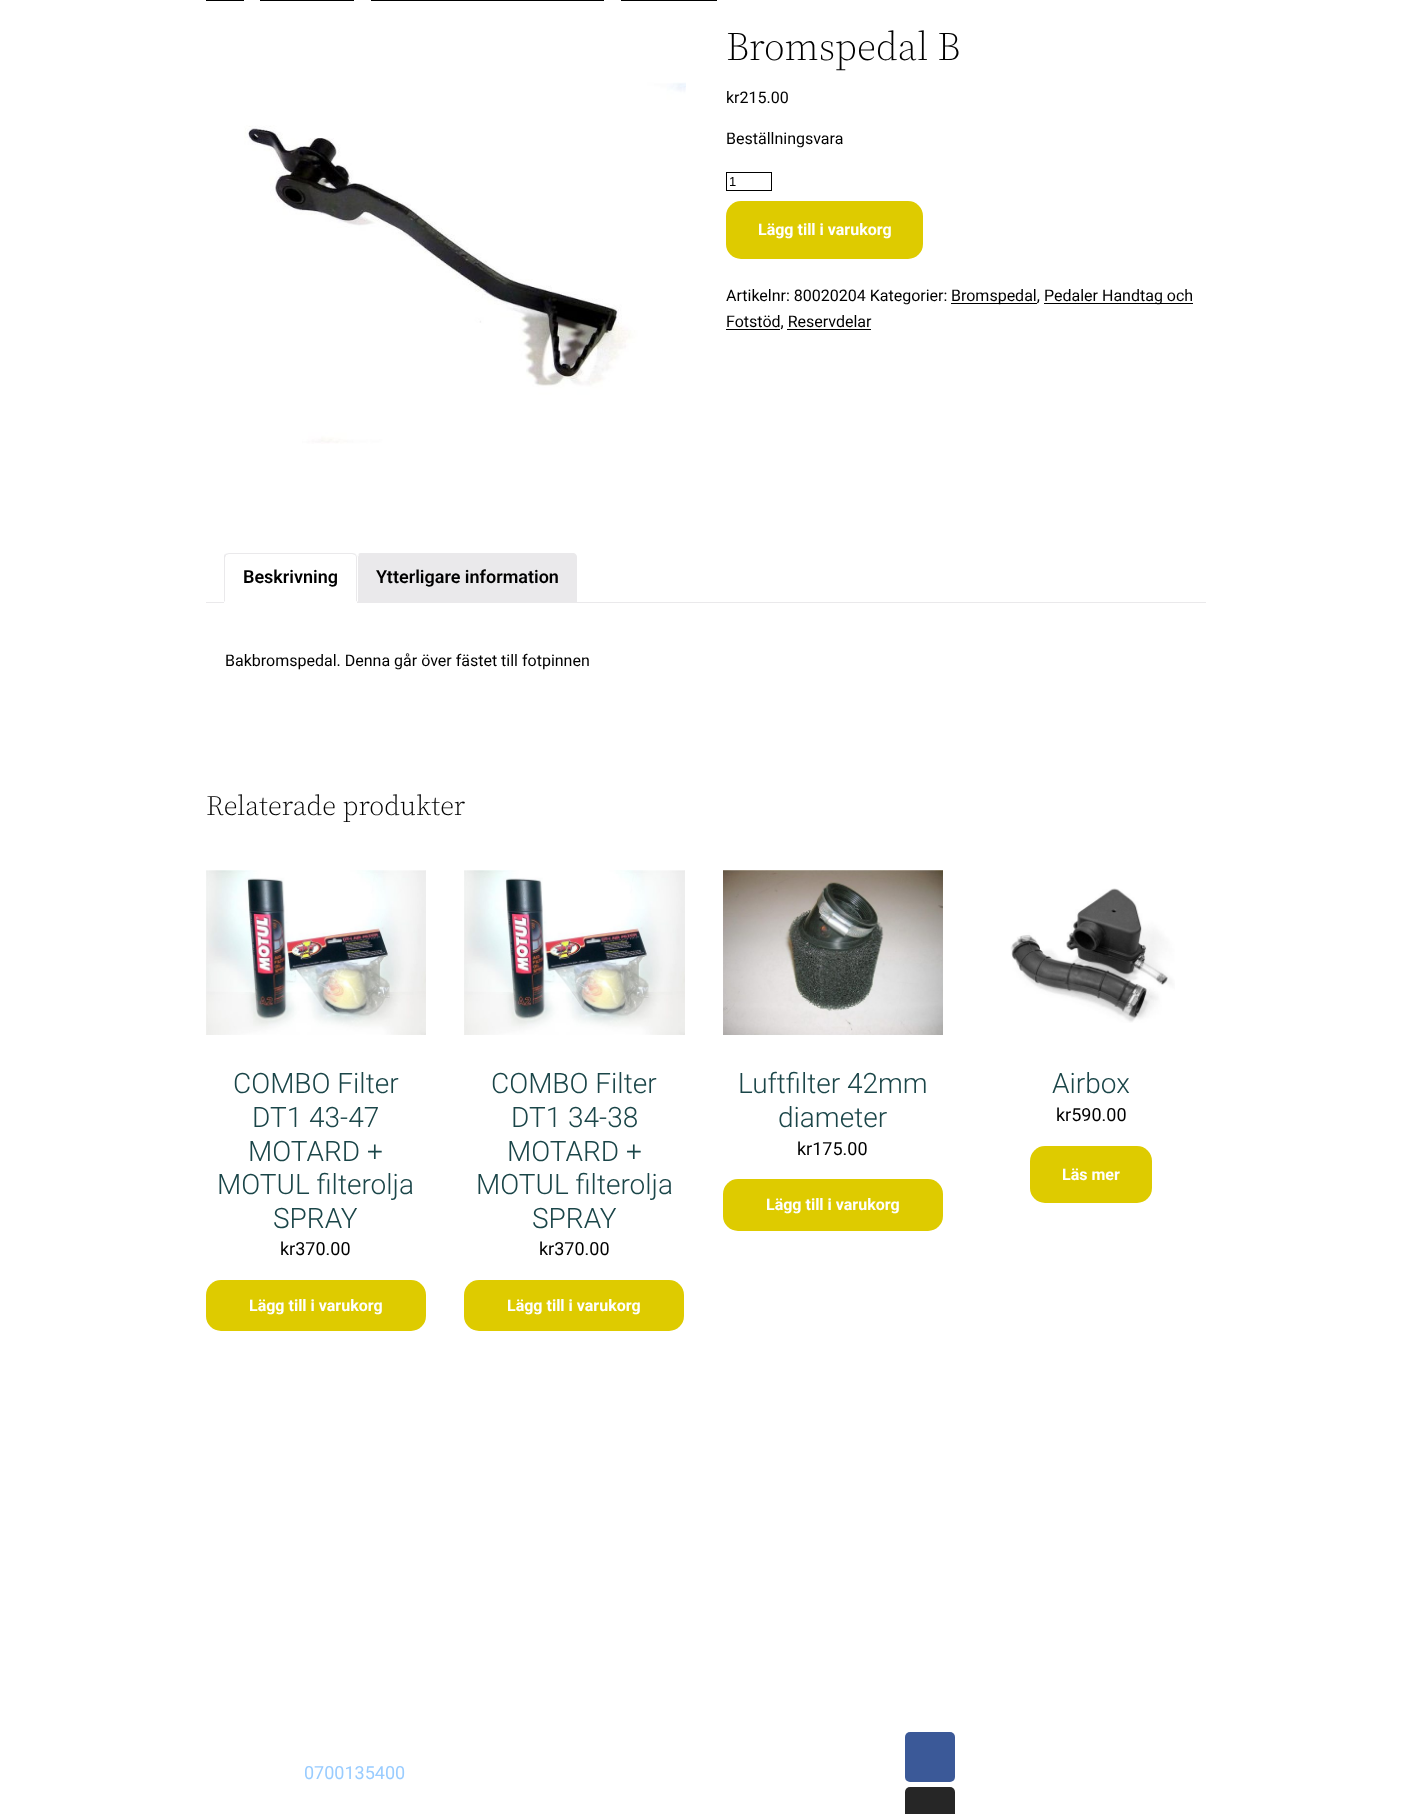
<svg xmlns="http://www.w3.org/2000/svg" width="1411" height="1814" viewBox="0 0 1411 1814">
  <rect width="100%" height="100%" fill="#ffffff"/>
  <rect x="206" y="0" width="38" height="1" fill="#000000"/>
  <rect x="260" y="0" width="94" height="1" fill="#000000"/>
  <rect x="371" y="0" width="233" height="1" fill="#000000"/>
  <rect x="621" y="0" width="96" height="1" fill="#000000"/>
  <image x="244" y="82" width="442" height="362" href="img1.png"/>
  <text x="726" y="60" font-family="'Source Serif 4'" font-size="40" font-weight="300" fill="#000000">Bromspedal B</text>
  <text x="726" y="103" font-family="Roboto" font-size="16" fill="#000000">kr215.00</text>
  <text x="726" y="144" font-family="Roboto" font-size="16" fill="#000000">Beställningsvara</text>
  <rect x="726.5" y="172.5" width="45" height="18" fill="none" stroke="#000000"/>
  <text x="729" y="186" font-family="Liberation Sans" font-size="13" fill="#000000">1</text>
  <rect x="726" y="201" width="197" height="58" rx="15" fill="#decb00"/>
  <text x="758" y="235" font-family="Roboto" font-size="16" font-weight="bold" fill="#ffffff">Lägg till i varukorg</text>
  <text x="726" y="301" font-family="Roboto" font-size="16" fill="#000000">Artikelnr: 80020204 Kategorier:</text>
  <rect x="951" y="303" width="86" height="1" fill="#000000"/>
  <text x="951" y="301" font-family="Roboto" font-size="16" fill="#000000">Bromspedal,</text>
  <rect x="1044" y="303" width="149" height="1" fill="#000000"/>
  <text x="1044" y="301" font-family="Roboto" font-size="16" fill="#000000">Pedaler Handtag och</text>
  <rect x="726" y="329" width="54" height="1" fill="#000000"/>
  <text x="726" y="327" font-family="Roboto" font-size="16" fill="#000000">Fotstöd, Reservdelar</text>
  <rect x="787" y="329" width="84" height="1" fill="#000000"/>
  <rect x="206" y="602" width="1000" height="1" fill="#eae9eb"/>
  <rect x="224" y="602" width="133" height="1" fill="#ffffff"/>
  <path d="M229 553C228 553 226 554 225 554L226 555L229 554H352L355 555L356 554C355 554 354 553 352 553Z" fill="#eae9eb"/>
  <path d="M357 602V558C357 556 356 555 356 554L355 555C356 556 356 557 356 558V601Z" fill="#eae9eb"/>
  <path d="M357 602L356 601H225L224 602Z" fill="#ffffff"/>
  <path d="M224 602L225 601V558C225 557 226 556 226 555L225 554C224 555 224 556 224 558Z" fill="#eae9eb"/>
  <text x="243" y="583" font-family="Roboto" font-size="18" font-weight="600" fill="#000000">Beskrivning</text>
  <path d="M362 553H572C575 553 577 555 577 558V602H357V558C357 555 359 553 362 553Z" fill="#eae9eb"/>
  <path d="M362 553C360 553 359 554 358 554L359 555L362 554H572L575 555L576 554C575 554 574 553 572 553Z" fill="#eae9eb"/>
  <path d="M577 602V558C577 556 576 555 576 554L575 555C576 556 576 557 576 558V601Z" fill="#eae9eb"/>
  <path d="M357 602L358 601V558C358 557 358 556 359 555L358 554C358 555 357 556 357 558Z" fill="#ffffff"/>
  <text x="376" y="583" font-family="Roboto" font-size="18" font-weight="600" fill="#000000">Ytterligare information</text>
  <text x="225" y="666" font-family="Roboto" font-size="16" fill="#000000">Bakbromspedal. Denna går över fästet till fotpinnen</text>
  <text x="206" y="815" font-family="'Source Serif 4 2'" font-size="28" font-weight="300" fill="#000000">Relaterade produkter</text>
  <image x="206" y="870" width="220" height="165" href="img2.png"/>
  <text x="233" y="1093" font-family="Roboto" font-size="28" font-weight="300" fill="#1a4548">COMBO Filter</text>
  <text x="252" y="1127" font-family="Roboto" font-size="28" font-weight="300" fill="#1a4548">DT1 43-47</text>
  <text x="248" y="1161" font-family="Roboto" font-size="28" font-weight="300" fill="#1a4548">MOTARD +</text>
  <text x="217" y="1194" font-family="Roboto" font-size="28" font-weight="300" fill="#1a4548">MOTUL filterolja</text>
  <text x="273" y="1228" font-family="Roboto" font-size="28" font-weight="300" fill="#1a4548">SPRAY</text>
  <text x="280" y="1255" font-family="Roboto" font-size="18" fill="#000000">kr370.00</text>
  <rect x="206" y="1280" width="220" height="51" rx="15" fill="#decb00"/>
  <text x="249" y="1311" font-family="Roboto" font-size="16" font-weight="bold" fill="#ffffff">Lägg till i varukorg</text>
  <image x="464" y="870" width="221" height="165" href="img3.png"/>
  <text x="491" y="1093" font-family="Roboto" font-size="28" font-weight="300" fill="#1a4548">COMBO Filter</text>
  <text x="511" y="1127" font-family="Roboto" font-size="28" font-weight="300" fill="#1a4548">DT1 34-38</text>
  <text x="507" y="1161" font-family="Roboto" font-size="28" font-weight="300" fill="#1a4548">MOTARD +</text>
  <text x="476" y="1194" font-family="Roboto" font-size="28" font-weight="300" fill="#1a4548">MOTUL filterolja</text>
  <text x="532" y="1228" font-family="Roboto" font-size="28" font-weight="300" fill="#1a4548">SPRAY</text>
  <text x="539" y="1255" font-family="Roboto" font-size="18" fill="#000000">kr370.00</text>
  <rect x="464" y="1280" width="220" height="51" rx="15" fill="#decb00"/>
  <text x="507" y="1311" font-family="Roboto" font-size="16" font-weight="bold" fill="#ffffff">Lägg till i varukorg</text>
  <image x="723" y="870" width="220" height="165" href="img4.png"/>
  <text x="738" y="1093" font-family="Roboto" font-size="28" font-weight="300" fill="#1a4548">Luftfilter 42mm</text>
  <text x="778" y="1127" font-family="Roboto" font-size="28" font-weight="300" fill="#1a4548">diameter</text>
  <text x="797" y="1155" font-family="Roboto" font-size="18" fill="#000000">kr175.00</text>
  <rect x="723" y="1179" width="220" height="52" rx="15" fill="#decb00"/>
  <text x="766" y="1210" font-family="Roboto" font-size="16" font-weight="bold" fill="#ffffff">Lägg till i varukorg</text>
  <image x="1010" y="888" width="165" height="135" href="img5.png"/>
  <text x="1052" y="1093" font-family="Roboto" font-size="28" font-weight="300" fill="#1a4548">Airbox</text>
  <text x="1056" y="1121" font-family="Roboto" font-size="18" fill="#000000">kr590.00</text>
  <rect x="1030" y="1146" width="122" height="57" rx="15" fill="#decb00"/>
  <text x="1062" y="1180" font-family="Roboto" font-size="16" font-weight="bold" fill="#ffffff">Läs mer</text>
  <text x="304" y="1779" font-family="Roboto" font-size="18" fill="#99ccff">0700135400</text>
  <rect x="905" y="1732" width="50" height="50" rx="5" fill="#3b5998"/>
  <rect x="905" y="1787" width="50" height="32" rx="5" fill="#262626"/>
</svg>
